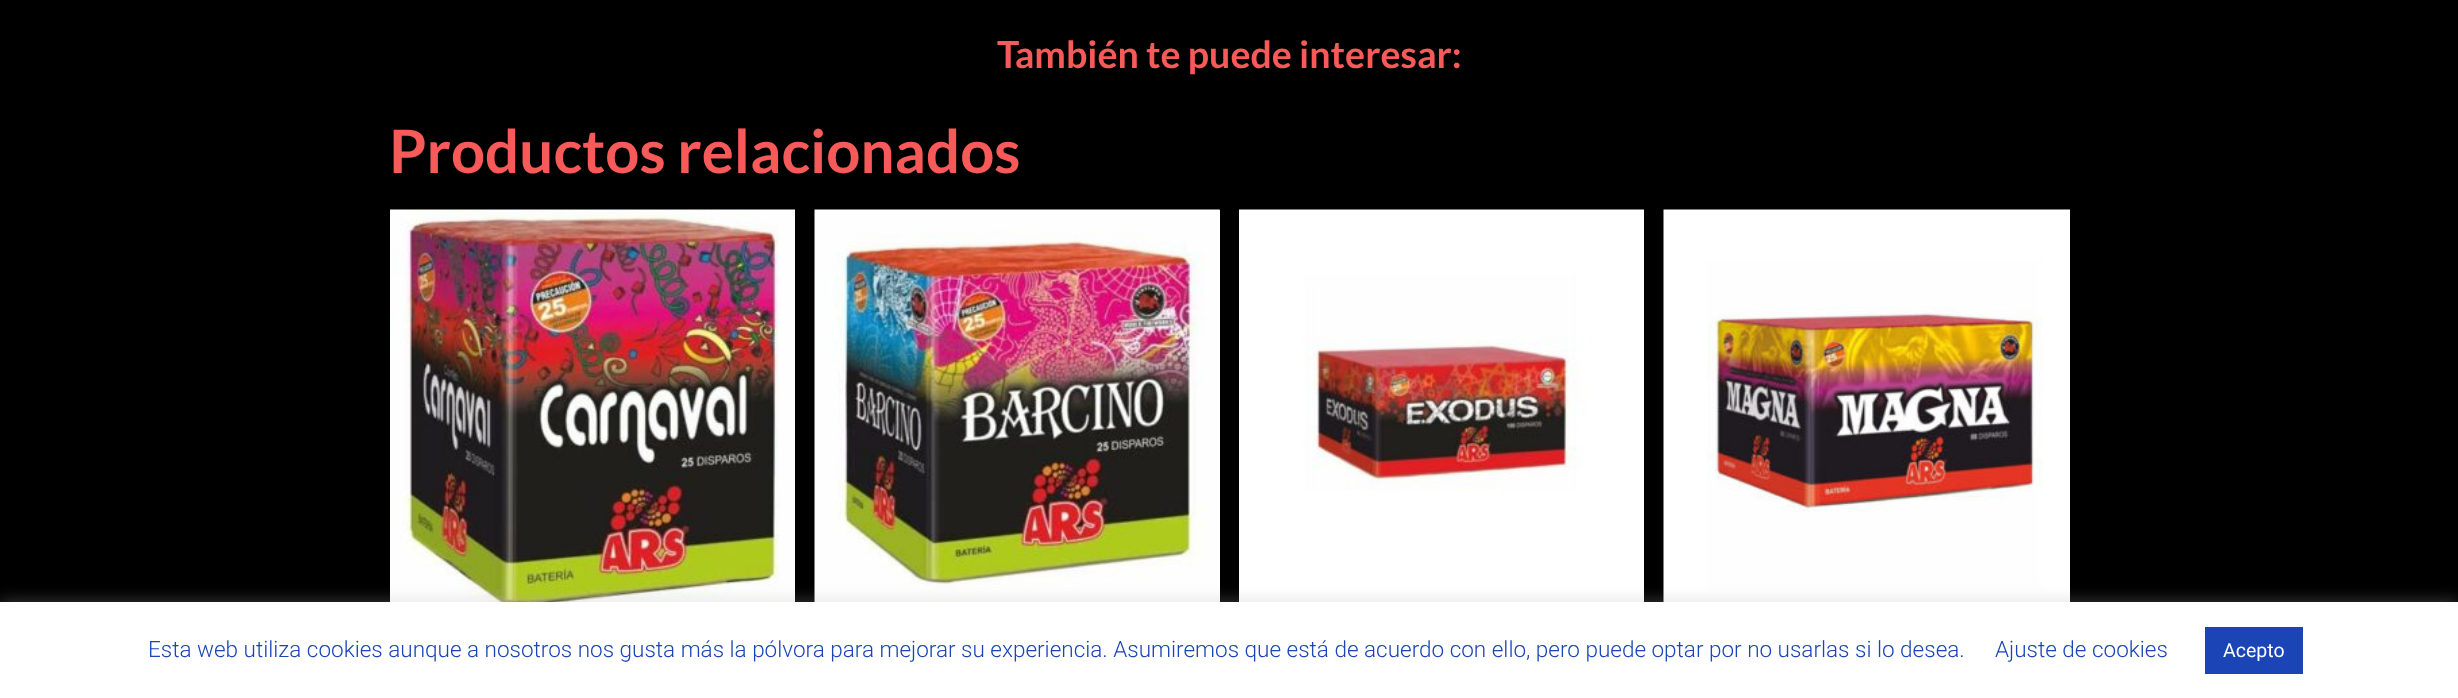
<svg xmlns="http://www.w3.org/2000/svg" width="2458" height="698" viewBox="0 0 2458 698">
  <defs>
    <filter id="blur1" x="-50%" y="-200%" width="200%" height="500%"><feGaussianBlur stdDeviation="7.5"/></filter>
  </defs>
  <rect width="100%" height="100%" fill="#000000"/>
  <text x="997" y="68" font-family="Lato" font-size="37.5" font-weight="bold" fill="#f85959">También te puede interesar:</text>
  <text x="389" y="173" font-family="Lato" font-size="60" font-weight="bold" fill="#f85959">Productos relacionados</text>
  <image x="390" y="209" width="405" height="393" href="img1.png"/>
  <rect x="1219" y="210" width="1" height="392" fill="#ffffff"/>
  <image x="814" y="209" width="406" height="393" href="img2.png"/>
  <rect x="1239" y="491" width="405" height="111" fill="#ffffff"/>
  <image x="1239" y="209" width="405" height="282" href="img3.png"/>
  <image x="1663" y="209" width="407" height="393" href="img4.png"/>
  <rect x="0" y="600" width="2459" height="98" fill="#acabab" fill-opacity="0.3" filter="url(#blur1)"/>
  <rect x="0" y="602" width="2458" height="96" fill="#ffffff"/>
  <text x="148" y="657" font-family="Roboto" font-size="22.5" font-weight="300" fill="#1b45b7">Esta web utiliza cookies aunque a nosotros nos gusta más la pólvora para mejorar su experiencia. Asumiremos que está de acuerdo con ello, pero puede optar por no usarlas si lo desea.</text>
  <text x="1995" y="657" font-family="Roboto" font-size="22.5" font-weight="300" fill="#1b45b7">Ajuste de cookies</text>
  <rect x="2205" y="627" width="98" height="47" fill="#1b45b7"/>
  <text x="2223" y="657" font-family="Roboto" font-size="19.5" fill="#ffffff">Acepto</text>
</svg>
